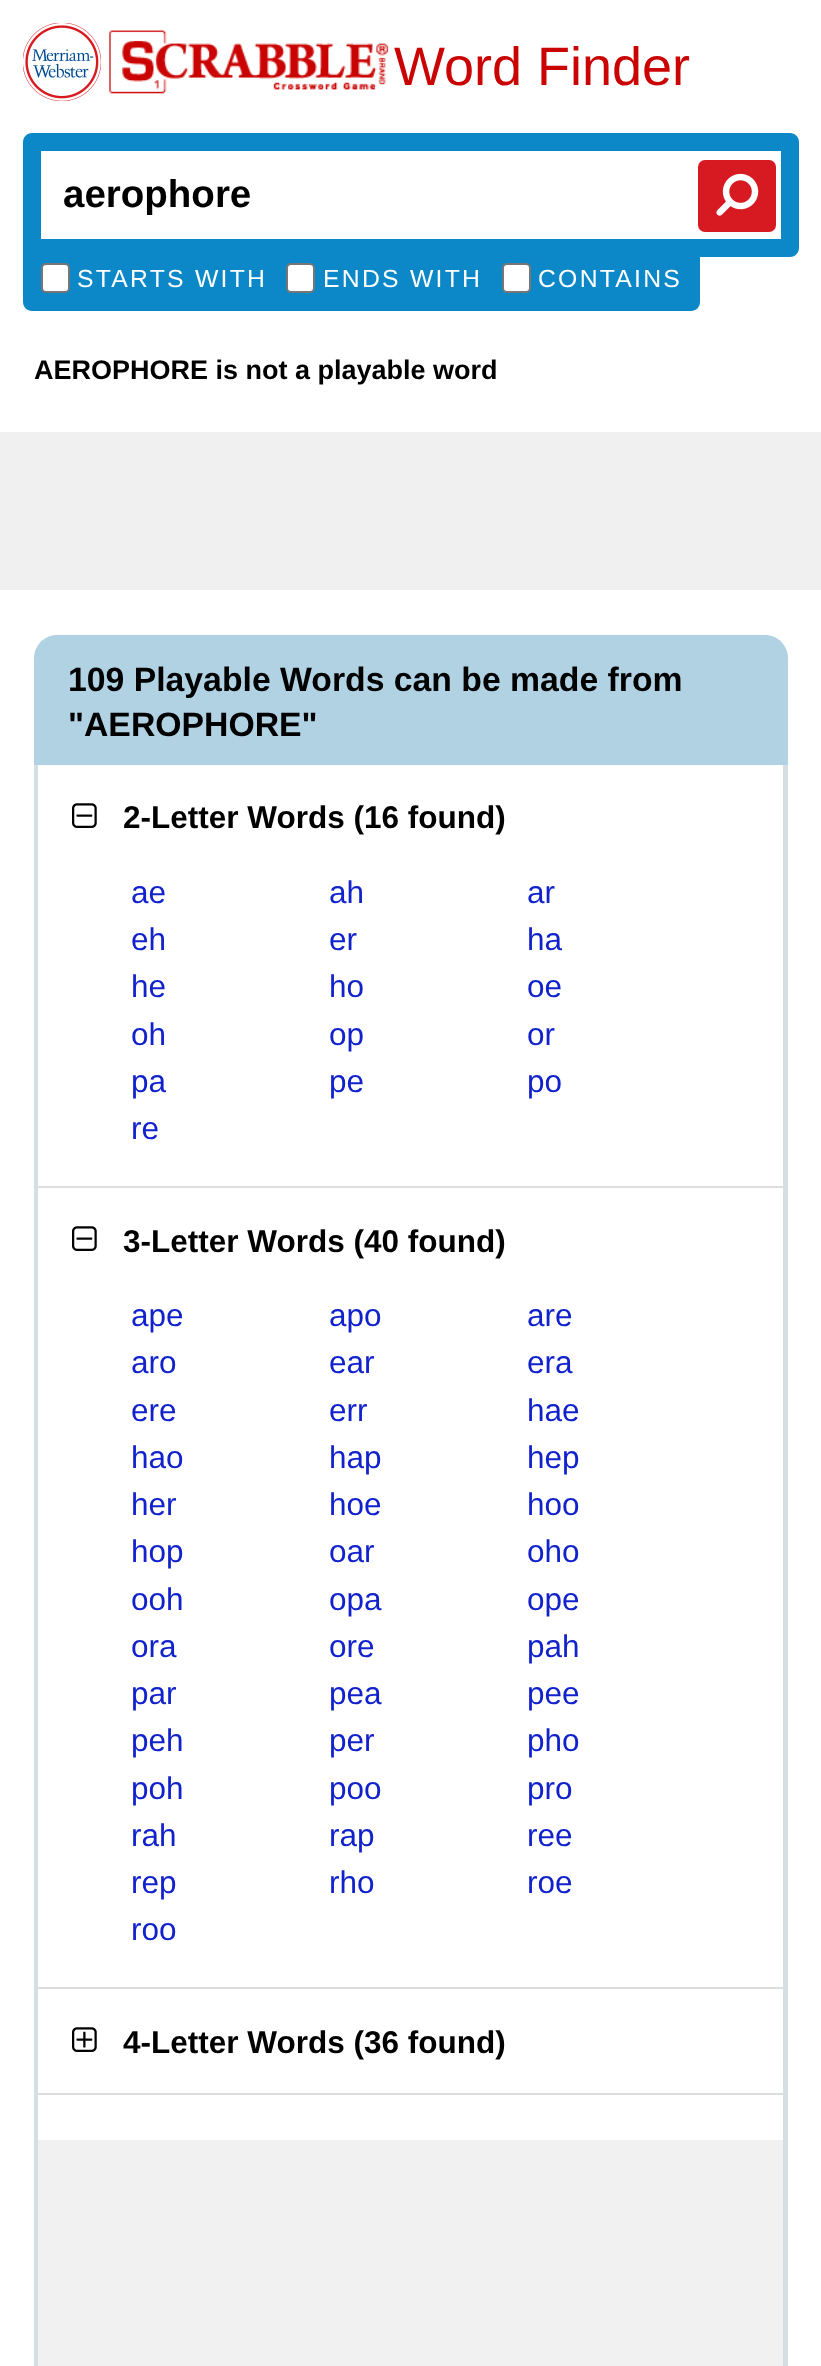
<svg xmlns="http://www.w3.org/2000/svg" width="821" height="2366" viewBox="0 0 821 2366">
  <rect width="100%" height="100%" fill="#ffffff"/>
  <image x="23" y="23" width="78" height="78" href="img1.png"/>
  <image x="109" y="30" width="280" height="64" href="img2.png"/>
  <text x="394" y="85" font-family="Liberation Sans" font-size="54" fill="#ca0403">Word Finder</text>
  <path d="M32 133H790C795 133 799 137 799 142V248C799 253 795 257 790 257H23V142C23 137 27 133 32 133Z" fill="#0c88c8"/>
  <rect x="41" y="151" width="740" height="88" fill="#ffffff"/>
  <text x="63" y="207" font-family="Liberation Sans" font-size="38.5" font-weight="bold" fill="#000000">aerophore</text>
  <rect x="698" y="160" width="78" height="72" rx="7" fill="#d71a21"/>
  <image x="716" y="173" width="43" height="43" href="img3.png"/>
  <path d="M23 257H700V302C700 307 696 311 691 311H32C27 311 23 307 23 302Z" fill="#0c88c8"/>
  <rect x="42" y="264" width="27" height="28" rx="4" fill="#ffffff" stroke="#767676" stroke-width="2"/>
  <text x="77" y="287" font-family="Liberation Sans" font-size="24.75" letter-spacing="2.25" fill="#ffffff">STARTS WITH</text>
  <rect x="287" y="264" width="27" height="28" rx="4" fill="#ffffff" stroke="#767676" stroke-width="2"/>
  <text x="323" y="287" font-family="Liberation Sans" font-size="24.75" letter-spacing="2.25" fill="#ffffff">ENDS WITH</text>
  <rect x="503" y="264" width="27" height="28" rx="4" fill="#ffffff" stroke="#767676" stroke-width="2"/>
  <text x="538" y="287" font-family="Liberation Sans" font-size="24.75" letter-spacing="2.25" fill="#ffffff">CONTAINS</text>
  <text x="34" y="379" font-family="Liberation Sans" font-size="27" font-weight="bold" fill="#000000">AEROPHORE is not a playable word</text>
  <rect x="0" y="432" width="821" height="158" fill="#f0f0f0"/>
  <path d="M57 635H765C777.5 635 788 645.5 788 658V765H34V658C34 645.5 44.5 635 57 635Z" fill="#b0d2e3"/>
  <text x="68" y="691" font-family="Liberation Sans" font-size="33.75" font-weight="bold" fill="#000000">109 Playable Words can be made from</text>
  <text x="68" y="736" font-family="Liberation Sans" font-size="33.75" font-weight="bold" fill="#000000">"AEROPHORE"</text>
  <path d="M34 765H788V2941C788 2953 777 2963 765 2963H56C44 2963 34 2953 34 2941ZM38 765H783V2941C783 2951 775 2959 765 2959H56C46 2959 38 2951 38 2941Z" fill="#d5dee3" fill-rule="evenodd"/>
  <rect x="38" y="1186" width="745" height="2" fill="#dddddd"/>
  <image x="72" y="803" width="25" height="25" href="img4.png"/>
  <text x="123" y="828" font-family="Liberation Sans" font-size="31.5" font-weight="bold" fill="#000000">2-Letter Words (16 found)</text>
  <text x="131" y="903" font-family="Liberation Sans" font-size="31.5" fill="#1122cc">ae</text>
  <text x="329" y="903" font-family="Liberation Sans" font-size="31.5" fill="#1122cc">ah</text>
  <text x="527" y="903" font-family="Liberation Sans" font-size="31.5" fill="#1122cc">ar</text>
  <text x="131" y="950" font-family="Liberation Sans" font-size="31.5" fill="#1122cc">eh</text>
  <text x="329" y="950" font-family="Liberation Sans" font-size="31.5" fill="#1122cc">er</text>
  <text x="527" y="950" font-family="Liberation Sans" font-size="31.5" fill="#1122cc">ha</text>
  <text x="131" y="997" font-family="Liberation Sans" font-size="31.5" fill="#1122cc">he</text>
  <text x="329" y="997" font-family="Liberation Sans" font-size="31.5" fill="#1122cc">ho</text>
  <text x="527" y="997" font-family="Liberation Sans" font-size="31.5" fill="#1122cc">oe</text>
  <text x="131" y="1045" font-family="Liberation Sans" font-size="31.5" fill="#1122cc">oh</text>
  <text x="329" y="1045" font-family="Liberation Sans" font-size="31.5" fill="#1122cc">op</text>
  <text x="527" y="1045" font-family="Liberation Sans" font-size="31.5" fill="#1122cc">or</text>
  <text x="131" y="1092" font-family="Liberation Sans" font-size="31.5" fill="#1122cc">pa</text>
  <text x="329" y="1092" font-family="Liberation Sans" font-size="31.5" fill="#1122cc">pe</text>
  <text x="527" y="1092" font-family="Liberation Sans" font-size="31.5" fill="#1122cc">po</text>
  <text x="131" y="1139" font-family="Liberation Sans" font-size="31.5" fill="#1122cc">re</text>
  <rect x="38" y="1987" width="745" height="2" fill="#dddddd"/>
  <image x="72" y="1226" width="25" height="25" href="img4.png"/>
  <text x="123" y="1252" font-family="Liberation Sans" font-size="31.5" font-weight="bold" fill="#000000">3-Letter Words (40 found)</text>
  <text x="131" y="1326" font-family="Liberation Sans" font-size="31.5" fill="#1122cc">ape</text>
  <text x="329" y="1326" font-family="Liberation Sans" font-size="31.5" fill="#1122cc">apo</text>
  <text x="527" y="1326" font-family="Liberation Sans" font-size="31.5" fill="#1122cc">are</text>
  <text x="131" y="1373" font-family="Liberation Sans" font-size="31.5" fill="#1122cc">aro</text>
  <text x="329" y="1373" font-family="Liberation Sans" font-size="31.5" fill="#1122cc">ear</text>
  <text x="527" y="1373" font-family="Liberation Sans" font-size="31.5" fill="#1122cc">era</text>
  <text x="131" y="1421" font-family="Liberation Sans" font-size="31.5" fill="#1122cc">ere</text>
  <text x="329" y="1421" font-family="Liberation Sans" font-size="31.5" fill="#1122cc">err</text>
  <text x="527" y="1421" font-family="Liberation Sans" font-size="31.5" fill="#1122cc">hae</text>
  <text x="131" y="1468" font-family="Liberation Sans" font-size="31.5" fill="#1122cc">hao</text>
  <text x="329" y="1468" font-family="Liberation Sans" font-size="31.5" fill="#1122cc">hap</text>
  <text x="527" y="1468" font-family="Liberation Sans" font-size="31.5" fill="#1122cc">hep</text>
  <text x="131" y="1515" font-family="Liberation Sans" font-size="31.5" fill="#1122cc">her</text>
  <text x="329" y="1515" font-family="Liberation Sans" font-size="31.5" fill="#1122cc">hoe</text>
  <text x="527" y="1515" font-family="Liberation Sans" font-size="31.5" fill="#1122cc">hoo</text>
  <text x="131" y="1562" font-family="Liberation Sans" font-size="31.5" fill="#1122cc">hop</text>
  <text x="329" y="1562" font-family="Liberation Sans" font-size="31.5" fill="#1122cc">oar</text>
  <text x="527" y="1562" font-family="Liberation Sans" font-size="31.5" fill="#1122cc">oho</text>
  <text x="131" y="1610" font-family="Liberation Sans" font-size="31.5" fill="#1122cc">ooh</text>
  <text x="329" y="1610" font-family="Liberation Sans" font-size="31.5" fill="#1122cc">opa</text>
  <text x="527" y="1610" font-family="Liberation Sans" font-size="31.5" fill="#1122cc">ope</text>
  <text x="131" y="1657" font-family="Liberation Sans" font-size="31.5" fill="#1122cc">ora</text>
  <text x="329" y="1657" font-family="Liberation Sans" font-size="31.5" fill="#1122cc">ore</text>
  <text x="527" y="1657" font-family="Liberation Sans" font-size="31.5" fill="#1122cc">pah</text>
  <text x="131" y="1704" font-family="Liberation Sans" font-size="31.5" fill="#1122cc">par</text>
  <text x="329" y="1704" font-family="Liberation Sans" font-size="31.5" fill="#1122cc">pea</text>
  <text x="527" y="1704" font-family="Liberation Sans" font-size="31.5" fill="#1122cc">pee</text>
  <text x="131" y="1751" font-family="Liberation Sans" font-size="31.5" fill="#1122cc">peh</text>
  <text x="329" y="1751" font-family="Liberation Sans" font-size="31.5" fill="#1122cc">per</text>
  <text x="527" y="1751" font-family="Liberation Sans" font-size="31.5" fill="#1122cc">pho</text>
  <text x="131" y="1799" font-family="Liberation Sans" font-size="31.5" fill="#1122cc">poh</text>
  <text x="329" y="1799" font-family="Liberation Sans" font-size="31.5" fill="#1122cc">poo</text>
  <text x="527" y="1799" font-family="Liberation Sans" font-size="31.5" fill="#1122cc">pro</text>
  <text x="131" y="1846" font-family="Liberation Sans" font-size="31.5" fill="#1122cc">rah</text>
  <text x="329" y="1846" font-family="Liberation Sans" font-size="31.5" fill="#1122cc">rap</text>
  <text x="527" y="1846" font-family="Liberation Sans" font-size="31.5" fill="#1122cc">ree</text>
  <text x="131" y="1893" font-family="Liberation Sans" font-size="31.5" fill="#1122cc">rep</text>
  <text x="329" y="1893" font-family="Liberation Sans" font-size="31.5" fill="#1122cc">rho</text>
  <text x="527" y="1893" font-family="Liberation Sans" font-size="31.5" fill="#1122cc">roe</text>
  <text x="131" y="1940" font-family="Liberation Sans" font-size="31.5" fill="#1122cc">roo</text>
  <rect x="38" y="2093" width="745" height="2" fill="#dddddd"/>
  <image x="72" y="2027" width="25" height="25" href="img5.png"/>
  <text x="123" y="2053" font-family="Liberation Sans" font-size="31.5" font-weight="bold" fill="#000000">4-Letter Words (36 found)</text>
  <rect x="38" y="2140" width="745" height="226" fill="#f1f1f1"/>
</svg>
